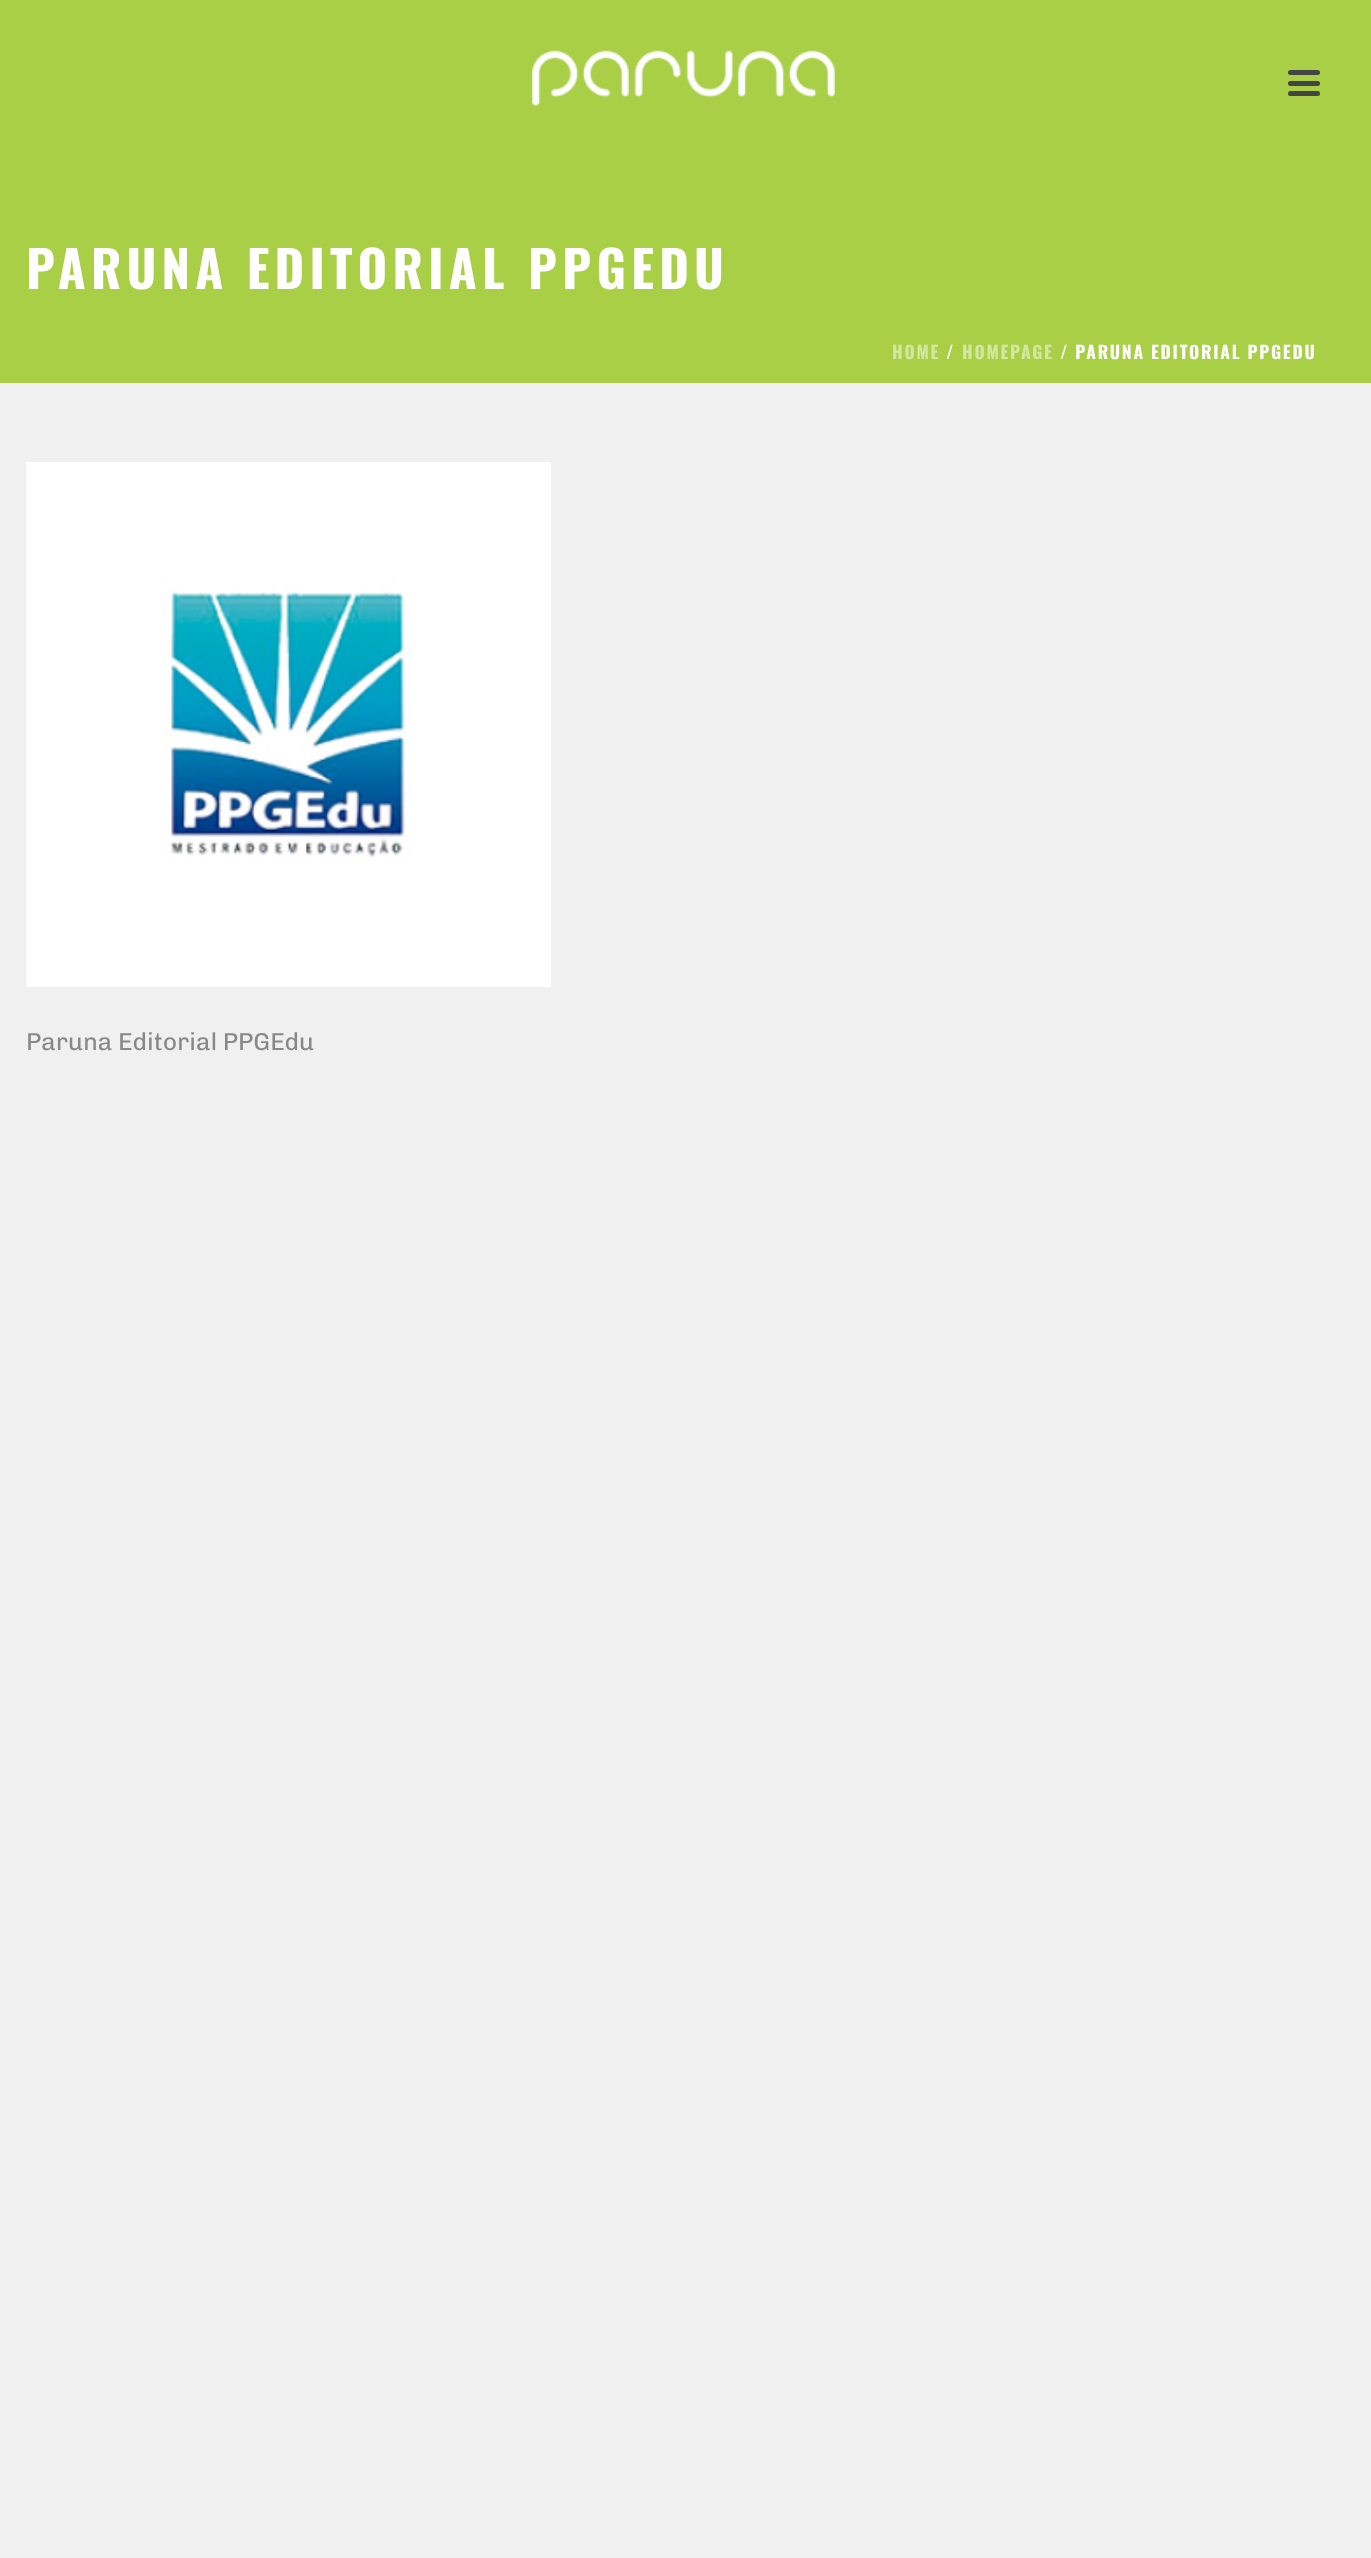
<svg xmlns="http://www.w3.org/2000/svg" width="1371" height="2558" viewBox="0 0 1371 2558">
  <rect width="100%" height="100%" fill="#f0f0f0"/>
  <rect x="0" y="0" width="1371" height="383" fill="#a8cf45"/>
  <image x="532" y="50" width="303" height="56" href="img1.png"/>
  <rect x="1288" y="70" width="32" height="5" rx="2.5" fill="#444444"/>
  <rect x="1288" y="81" width="32" height="5" rx="2.5" fill="#444444"/>
  <rect x="1288" y="91" width="32" height="5" rx="2.5" fill="#444444"/>
  <text x="26" y="289" font-family="Oswald" font-size="50.75" font-weight="bold" letter-spacing="5.25" fill="#ffffff">PARUNA EDITORIAL PPGEDU</text>
  <text x="892" y="359" font-family="Oswald" font-size="17.5" font-weight="bold" letter-spacing="1.75" fill="#d4e7a2">HOME</text>
  <text x="946" y="359" font-family="Oswald" font-size="17.5" font-weight="bold" letter-spacing="1.75" fill="#ffffff">/</text>
  <text x="962" y="359" font-family="Oswald" font-size="17.5" font-weight="bold" letter-spacing="1.75" fill="#d4e7a2">HOMEPAGE</text>
  <text x="1060" y="359" font-family="Oswald" font-size="17.5" font-weight="bold" letter-spacing="1.75" fill="#ffffff">/ PARUNA EDITORIAL PPGEDU</text>
  <image x="26" y="462" width="525" height="525" href="img2.png"/>
  <text x="26" y="1050" font-family="Chivo" font-size="24.5" fill="#888888">Paruna Editorial PPGEdu</text>
</svg>
